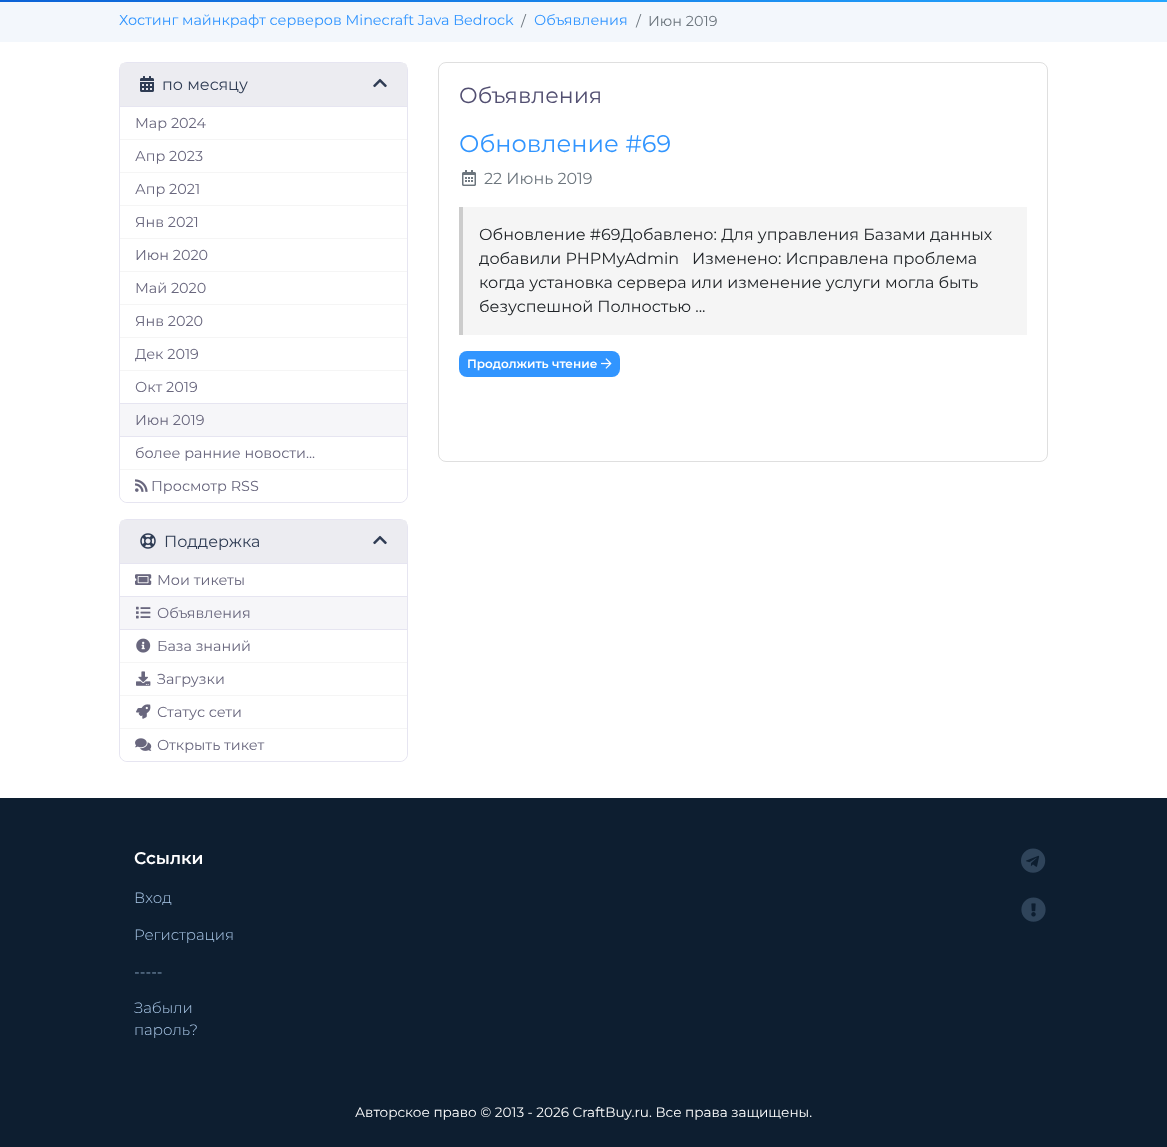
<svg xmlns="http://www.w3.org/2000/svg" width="1167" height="1147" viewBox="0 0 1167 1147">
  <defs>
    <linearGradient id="g1" gradientUnits="userSpaceOnUse" x1="111" y1="-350" x2="1056" y2="195"><stop offset="0" stop-color="#0a5dd3"/><stop offset="1" stop-color="#24a7ff"/></linearGradient>
  </defs>
  <rect width="100%" height="100%" fill="#ffffff"/>
  <rect x="0" y="0" width="1167" height="2" fill="url(#g1)"/>
  <rect x="0" y="2" width="1167" height="40" fill="#f3f7fc"/>
  <text x="119" y="25" font-family="Montserrat" font-size="14.4" font-weight="100" fill="#3195ff">Хостинг майнкрафт серверов Minecraft Java Bedrock</text>
  <text x="521" y="26" font-family="Montserrat" font-size="14.4" font-weight="100" fill="#6c757d">/</text>
  <text x="534" y="25" font-family="Montserrat" font-size="14.4" font-weight="100" fill="#3195ff">Объявления</text>
  <text x="636" y="26" font-family="Montserrat" font-size="14.4" font-weight="100" fill="#6c757d">/</text>
  <text x="648" y="26" font-family="Montserrat" font-size="14.4" font-weight="100" fill="#6c757d">Июн 2019</text>
  <rect x="119.5" y="62.5" width="288" height="440" rx="7.5" fill="none" stroke="#e6e5f1"/>
  <path d="M123 63H404C405.5 63 407 64.5 407 66V107H120V66C120 64.5 121.5 63 123 63Z" fill="#ececf1"/>
  <rect x="120" y="106" width="287" height="1" fill="#e6e5f1"/>
  <image x="140" y="76" width="14" height="16" href="img1.png"/>
  <text x="162" y="90" font-family="Montserrat" font-size="16" font-weight="100" fill="#2f3c54">по месяцу</text>
  <image x="373" y="78" width="14" height="10" href="img2.png"/>
  <rect x="120" y="139" width="287" height="1" fill="#f5f5f5"/>
  <text x="135" y="128" font-family="Montserrat" font-size="14.4" font-weight="100" fill="#69677e">Мар 2024</text>
  <rect x="120" y="172" width="287" height="1" fill="#f5f5f5"/>
  <text x="135" y="161" font-family="Montserrat" font-size="14.4" font-weight="100" fill="#69677e">Апр 2023</text>
  <rect x="120" y="205" width="287" height="1" fill="#f5f5f5"/>
  <text x="135" y="194" font-family="Montserrat" font-size="14.4" font-weight="100" fill="#69677e">Апр 2021</text>
  <rect x="120" y="238" width="287" height="1" fill="#f5f5f5"/>
  <text x="135" y="227" font-family="Montserrat" font-size="14.4" font-weight="100" fill="#69677e">Янв 2021</text>
  <rect x="120" y="271" width="287" height="1" fill="#f5f5f5"/>
  <text x="135" y="260" font-family="Montserrat" font-size="14.4" font-weight="100" fill="#69677e">Июн 2020</text>
  <rect x="120" y="304" width="287" height="1" fill="#f5f5f5"/>
  <text x="135" y="293" font-family="Montserrat" font-size="14.4" font-weight="100" fill="#69677e">Май 2020</text>
  <rect x="120" y="337" width="287" height="1" fill="#f5f5f5"/>
  <text x="135" y="326" font-family="Montserrat" font-size="14.4" font-weight="100" fill="#69677e">Янв 2020</text>
  <rect x="120" y="370" width="287" height="1" fill="#f5f5f5"/>
  <text x="135" y="359" font-family="Montserrat" font-size="14.4" font-weight="100" fill="#69677e">Дек 2019</text>
  <text x="135" y="392" font-family="Montserrat" font-size="14.4" font-weight="100" fill="#69677e">Окт 2019</text>
  <rect x="120" y="404" width="287" height="32" fill="#f6f6f9"/>
  <rect x="120" y="403" width="287" height="1" fill="#e6e5f1"/>
  <rect x="120" y="436" width="287" height="1" fill="#e6e5f1"/>
  <text x="135" y="425" font-family="Montserrat" font-size="14.4" font-weight="100" fill="#69677e">Июн 2019</text>
  <rect x="120" y="469" width="287" height="1" fill="#f5f5f5"/>
  <text x="135" y="458" font-family="Montserrat" font-size="14.4" font-weight="100" fill="#69677e">более ранние новости...</text>
  <path d="M120 470H407V494C407 498.5 403.5 502 399 502H128C123.5 502 120 498.5 120 494Z" fill="#ffffff"/>
  <image x="135" y="479" width="13" height="13" href="img3.png"/>
  <text x="151" y="491" font-family="Montserrat" font-size="14.4" font-weight="100" fill="#69677e">Просмотр RSS</text>
  <rect x="119.5" y="519.5" width="288" height="242" rx="7.5" fill="none" stroke="#e6e5f1"/>
  <path d="M123 520H404C405.5 520 407 521.5 407 523V564H120V523C120 521.5 121.5 520 123 520Z" fill="#ececf1"/>
  <rect x="120" y="563" width="287" height="1" fill="#e6e5f1"/>
  <image x="140" y="533" width="16" height="16" href="img4.png"/>
  <text x="164" y="547" font-family="Montserrat" font-size="16" font-weight="100" fill="#2f3c54">Поддержка</text>
  <image x="373" y="535" width="14" height="10" href="img2.png"/>
  <image x="135" y="574" width="17" height="11" href="img5.png"/>
  <text x="157" y="585" font-family="Montserrat" font-size="14.4" font-weight="100" fill="#69677e">Мои тикеты</text>
  <rect x="120" y="597" width="287" height="32" fill="#f6f6f9"/>
  <rect x="120" y="596" width="287" height="1" fill="#e6e5f1"/>
  <rect x="120" y="629" width="287" height="1" fill="#e6e5f1"/>
  <image x="136" y="606" width="15" height="13" href="img6.png"/>
  <text x="157" y="618" font-family="Montserrat" font-size="14.4" font-weight="100" fill="#69677e">Объявления</text>
  <rect x="120" y="662" width="287" height="1" fill="#f5f5f5"/>
  <image x="136" y="638" width="15" height="15" href="img7.png"/>
  <text x="157" y="651" font-family="Montserrat" font-size="14.4" font-weight="100" fill="#69677e">База знаний</text>
  <rect x="120" y="695" width="287" height="1" fill="#f5f5f5"/>
  <image x="136" y="671" width="15" height="15" href="img8.png"/>
  <text x="157" y="684" font-family="Montserrat" font-size="14.4" font-weight="100" fill="#69677e">Загрузки</text>
  <rect x="120" y="728" width="287" height="1" fill="#f5f5f5"/>
  <image x="136" y="704" width="15" height="15" href="img9.png"/>
  <text x="157" y="717" font-family="Montserrat" font-size="14.4" font-weight="100" fill="#69677e">Статус сети</text>
  <path d="M120 729H407V753C407 757.5 403.5 761 399 761H128C123.5 761 120 757.5 120 753Z" fill="#ffffff"/>
  <image x="135" y="738" width="17" height="13" href="img10.png"/>
  <text x="157" y="750" font-family="Montserrat" font-size="14.4" font-weight="100" fill="#69677e">Открыть тикет</text>
  <rect x="438.5" y="62.5" width="609" height="399" rx="7.5" fill="none" stroke="#dfdfdf"/>
  <text x="459" y="103" font-family="Montserrat" font-size="22" font-weight="100" fill="#524f71">Объявления</text>
  <text x="459" y="152" font-family="Montserrat" font-size="24" font-weight="100" fill="#3195ff">Обновление #69</text>
  <image x="462" y="170" width="14" height="16" href="img11.png"/>
  <text x="484" y="184" font-family="Montserrat" font-size="16" font-weight="100" fill="#6c757d">22 Июнь 2019</text>
  <rect x="463" y="207" width="564" height="128" fill="#f5f5f5"/>
  <rect x="459" y="207" width="4" height="128" fill="#cccccc"/>
  <text x="479" y="240" font-family="Montserrat" font-size="16" font-weight="100" fill="#212529">Обновление #69Добавлено: Для управления Базами данных</text>
  <text x="479" y="264" font-family="Montserrat" font-size="16" font-weight="100" fill="#212529">добавили PHPMyAdmin</text>
  <text x="692" y="264" font-family="Montserrat" font-size="16" font-weight="100" fill="#212529">Изменено: Исправлена проблема</text>
  <text x="479" y="288" font-family="Montserrat" font-size="16" font-weight="100" fill="#212529">когда установка сервера или изменение услуги могла быть</text>
  <text x="479" y="312" font-family="Montserrat" font-size="16" font-weight="100" fill="#212529">безуспешной Полностью ...</text>
  <rect x="459" y="351" width="161" height="26" rx="8" fill="#3195ff"/>
  <text x="467" y="368" font-family="'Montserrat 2'" font-size="12" font-weight="100" fill="#ffffff">Продолжить чтение</text>
  <image x="601" y="358" width="11" height="11" href="img12.png"/>
  <rect x="0" y="798" width="1167" height="349" fill="#0d1e30"/>
  <text x="134" y="864" font-family="'Montserrat 2'" font-size="17" font-weight="100" fill="#ffffff">Ссылки</text>
  <text x="134" y="903" font-family="'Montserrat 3'" font-size="15" font-weight="100" fill="#abc9e9">Вход</text>
  <text x="134" y="940" font-family="'Montserrat 3'" font-size="15" font-weight="100" fill="#abc9e9">Регистрация</text>
  <text x="134" y="977" font-family="'Montserrat 3'" font-size="15" font-weight="100" fill="#abc9e9">-----</text>
  <text x="134" y="1013" font-family="'Montserrat 3'" font-size="15" font-weight="100" fill="#abc9e9">Забыли</text>
  <text x="134" y="1035" font-family="'Montserrat 3'" font-size="15" font-weight="100" fill="#abc9e9">пароль?</text>
  <image x="1021" y="848" width="25" height="25" href="img13.png"/>
  <image x="1021" y="897" width="25" height="25" href="img14.png"/>
  <text x="355" y="1117" font-family="Montserrat" font-size="13.6" font-weight="100" fill="#ffffff">Авторское право © 2013 - 2026 CraftBuy.ru. Все права защищены.</text>
</svg>
